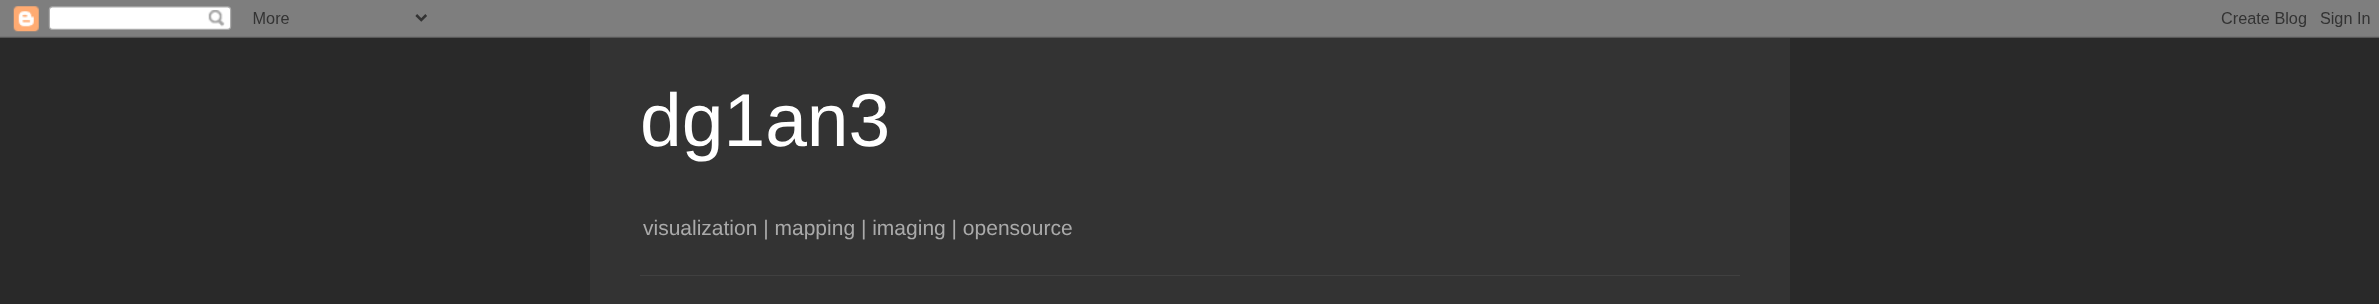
<svg xmlns="http://www.w3.org/2000/svg" width="2379" height="304" viewBox="0 0 2379 304">
  <rect width="100%" height="100%" fill="#292929"/>
  <image x="0" y="0" width="2379" height="38" href="img1.png"/>
  <rect x="590" y="38" width="1200" height="266" fill="#333333"/>
  <text x="640" y="146" font-family="Liberation Sans" font-size="75" fill="#ffffff">dg1an3</text>
  <text x="643" y="235" font-family="Liberation Sans" font-size="21" fill="#aaaaaa">visualization | mapping | imaging | opensource</text>
  <rect x="640" y="275" width="1100" height="1" fill="#404040"/>
</svg>
